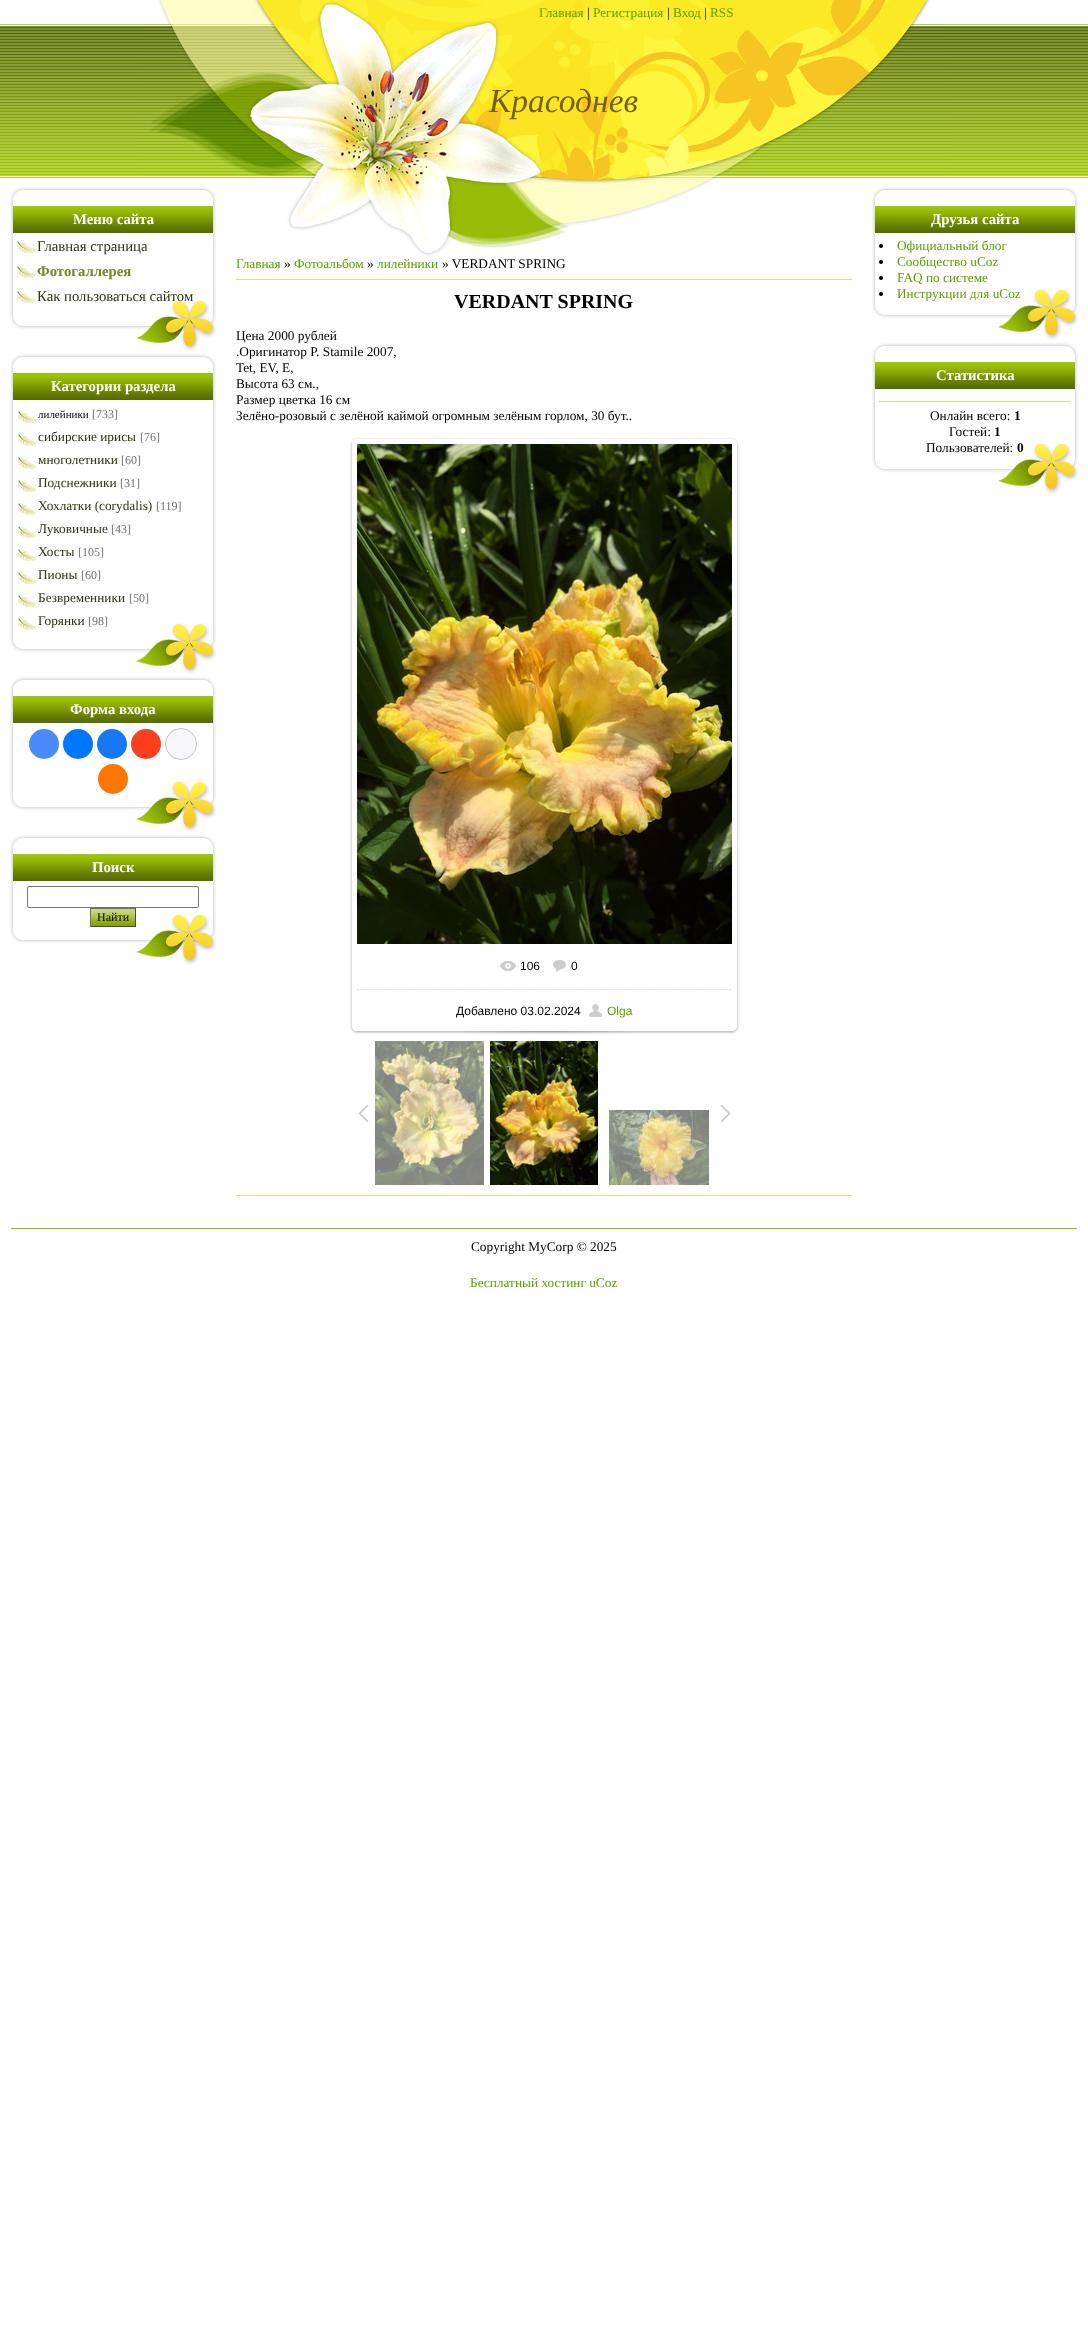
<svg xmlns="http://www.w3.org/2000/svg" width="1088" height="2340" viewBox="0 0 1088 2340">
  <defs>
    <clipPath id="clip1"><path d="M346 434H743V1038H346ZM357 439H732C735 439 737 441 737 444V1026C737 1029 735 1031 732 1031H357C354 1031 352 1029 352 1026V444C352 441 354 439 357 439Z" clip-rule="evenodd"/></clipPath>
    <filter id="blur1" x="-50%" y="-200%" width="200%" height="500%"><feGaussianBlur stdDeviation="1.5"/></filter>
  </defs>
  <rect width="100%" height="100%" fill="#ffffff"/>
  <image x="0" y="24" width="1088" height="154" href="img1.png"/>
  <image x="155" y="0" width="776" height="26" href="img2.png"/>
  <text x="539" y="17" font-family="Liberation Serif" font-size="13.3" fill="#5c9f00">Главная</text>
  <text x="587" y="17" font-family="Liberation Serif" font-size="13.3" fill="#000000">|</text>
  <text x="593" y="17" font-family="Liberation Serif" font-size="13.3" fill="#5c9f00">Регистрация</text>
  <text x="667" y="17" font-family="Liberation Serif" font-size="13.3" fill="#000000">|</text>
  <text x="673" y="17" font-family="Liberation Serif" font-size="13.3" fill="#5c9f00">Вход</text>
  <text x="704" y="17" font-family="Liberation Serif" font-size="13.3" fill="#000000">|</text>
  <text x="710" y="17" font-family="Liberation Serif" font-size="13.3" fill="#5c9f00">RSS</text>
  <image x="139" y="26" width="810" height="150" href="img3.png"/>
  <text x="489" y="112" font-family="Liberation Serif" font-size="33.5" font-style="italic" fill="#775f10">Красоднев</text>
  <image x="259" y="176" width="462" height="80" href="img4.png"/>
  <image x="10" y="233" width="206" height="67" href="img5.png"/>
  <image x="10" y="186" width="206" height="47" href="img6.png"/>
  <text x="73" y="224" font-family="Liberation Serif" font-size="14.75" font-weight="bold" fill="#ffffff">Меню сайта</text>
  <image x="10" y="300" width="206" height="53" href="img7.png"/>
  <image x="17" y="241" width="18" height="12" href="img8.png"/>
  <text x="37" y="251" font-family="Liberation Serif" font-size="14.75" fill="#2b3414">Главная страница</text>
  <image x="17" y="266" width="18" height="12" href="img8.png"/>
  <text x="37" y="276" font-family="Liberation Serif" font-size="14.75" font-weight="bold" fill="#708525">Фотогаллерея</text>
  <image x="17" y="291" width="18" height="12" href="img8.png"/>
  <text x="37" y="301" font-family="Liberation Serif" font-size="14.75" fill="#2b3414">Как пользоваться сайтом</text>
  <image x="10" y="400" width="206" height="223" href="img9.png"/>
  <image x="10" y="353" width="206" height="47" href="img6.png"/>
  <text x="51" y="391" font-family="Liberation Serif" font-size="14.75" font-weight="bold" fill="#ffffff">Категории раздела</text>
  <image x="10" y="623" width="206" height="53" href="img7.png"/>
  <image x="18" y="411" width="18" height="12" href="img8.png"/>
  <text x="38" y="418" font-family="Liberation Serif" font-size="11" fill="#000000">лилейники</text>
  <text x="92" y="418" font-family="Liberation Serif" font-size="12" fill="#6e6e6e">[733]</text>
  <image x="18" y="434" width="18" height="12" href="img8.png"/>
  <text x="38" y="441" font-family="Liberation Serif" font-size="13.3" fill="#2b3414">сибирские ирисы</text>
  <text x="140" y="441" font-family="Liberation Serif" font-size="12" fill="#6e6e6e">[76]</text>
  <image x="18" y="457" width="18" height="12" href="img8.png"/>
  <text x="38" y="464" font-family="Liberation Serif" font-size="13.3" fill="#2b3414">многолетники</text>
  <text x="121" y="464" font-family="Liberation Serif" font-size="12" fill="#6e6e6e">[60]</text>
  <image x="18" y="480" width="18" height="12" href="img8.png"/>
  <text x="38" y="487" font-family="Liberation Serif" font-size="13.3" fill="#2b3414">Подснежники</text>
  <text x="120" y="487" font-family="Liberation Serif" font-size="12" fill="#6e6e6e">[31]</text>
  <image x="18" y="503" width="18" height="12" href="img8.png"/>
  <text x="38" y="510" font-family="Liberation Serif" font-size="13.3" fill="#2b3414">Хохлатки (corydalis)</text>
  <text x="156" y="510" font-family="Liberation Serif" font-size="12" fill="#6e6e6e">[119]</text>
  <image x="18" y="526" width="18" height="12" href="img8.png"/>
  <text x="38" y="533" font-family="Liberation Serif" font-size="13.3" fill="#2b3414">Луковичные</text>
  <text x="111" y="533" font-family="Liberation Serif" font-size="12" fill="#6e6e6e">[43]</text>
  <image x="18" y="549" width="18" height="12" href="img8.png"/>
  <text x="38" y="556" font-family="Liberation Serif" font-size="13.3" fill="#2b3414">Хосты</text>
  <text x="78" y="556" font-family="Liberation Serif" font-size="12" fill="#6e6e6e">[105]</text>
  <image x="18" y="572" width="18" height="12" href="img8.png"/>
  <text x="38" y="579" font-family="Liberation Serif" font-size="13.3" fill="#2b3414">Пионы</text>
  <text x="81" y="579" font-family="Liberation Serif" font-size="12" fill="#6e6e6e">[60]</text>
  <image x="18" y="595" width="18" height="12" href="img8.png"/>
  <text x="38" y="602" font-family="Liberation Serif" font-size="13.3" fill="#2b3414">Безвременники</text>
  <text x="129" y="602" font-family="Liberation Serif" font-size="12" fill="#6e6e6e">[50]</text>
  <image x="18" y="618" width="18" height="12" href="img8.png"/>
  <text x="38" y="625" font-family="Liberation Serif" font-size="13.3" fill="#2b3414">Горянки</text>
  <text x="88" y="625" font-family="Liberation Serif" font-size="12" fill="#6e6e6e">[98]</text>
  <image x="10" y="723" width="206" height="58" href="img10.png"/>
  <image x="10" y="676" width="206" height="47" href="img6.png"/>
  <text x="70" y="714" font-family="Liberation Serif" font-size="14.75" font-weight="bold" fill="#ffffff">Форма входа</text>
  <image x="10" y="781" width="206" height="53" href="img7.png"/>
  <circle cx="44" cy="744" r="15" fill="#498bfa"/>
  <circle cx="78" cy="744" r="15" fill="#0077ff"/>
  <circle cx="112" cy="744" r="15" fill="#1877f2"/>
  <circle cx="146" cy="744" r="15" fill="#fc3f1d"/>
  <circle cx="181" cy="744" r="15.5" fill="#f8f8fc" stroke="#c4c4c4"/>
  <circle cx="113" cy="779" r="15" fill="#ff7700"/>
  <image x="10" y="881" width="206" height="33" href="img11.png"/>
  <image x="10" y="834" width="206" height="47" href="img6.png"/>
  <text x="92" y="872" font-family="Liberation Serif" font-size="14.75" font-weight="bold" fill="#ffffff">Поиск</text>
  <image x="10" y="914" width="206" height="53" href="img7.png"/>
  <rect x="27.5" y="886.5" width="171" height="21" rx="1.5" fill="none" stroke="#767676"/>
  <rect x="91" y="924" width="44" height="2" fill="#87a303"/>
  <image x="91" y="909" width="44" height="15" href="img12.png"/>
  <rect x="90" y="908" width="46" height="1" fill="#6e6e6e"/>
  <rect x="135" y="908" width="1" height="19" fill="#494949"/>
  <rect x="90" y="926" width="46" height="1" fill="#494949"/>
  <rect x="90" y="908" width="1" height="19" fill="#6e6e6e"/>
  <text x="97" y="921" font-family="Liberation Serif" font-size="12" fill="#000000">Найти</text>
  <text x="236" y="268" font-family="Liberation Serif" font-size="13.3" fill="#5c9f00">Главная</text>
  <text x="284" y="268" font-family="Liberation Serif" font-size="13.3" fill="#000000">»</text>
  <text x="294" y="268" font-family="Liberation Serif" font-size="13.3" fill="#5c9f00">Фотоальбом</text>
  <text x="367" y="268" font-family="Liberation Serif" font-size="13.3" fill="#000000">»</text>
  <text x="377" y="268" font-family="Liberation Serif" font-size="13.3" fill="#5c9f00">лилейники</text>
  <text x="442" y="268" font-family="Liberation Serif" font-size="13.3" fill="#000000">» VERDANT SPRING</text>
  <rect x="236" y="279" width="616" height="1" fill="#d6e37d"/>
  <text x="454" y="308" font-family="Liberation Serif" font-size="20" font-weight="bold" fill="#000000">VERDANT SPRING</text>
  <text x="236" y="340" font-family="Liberation Serif" font-size="13.3" fill="#000000">Цена 2000 рублей</text>
  <text x="236" y="356" font-family="Liberation Serif" font-size="13.3" fill="#000000">.Оригинатор P. Stamile 2007,</text>
  <text x="236" y="372" font-family="Liberation Serif" font-size="13.3" fill="#000000">Tet, EV, E,</text>
  <text x="236" y="388" font-family="Liberation Serif" font-size="13.3" fill="#000000">Высота 63 см.,</text>
  <text x="236" y="404" font-family="Liberation Serif" font-size="13.3" fill="#000000">Размер цветка 16 см</text>
  <text x="236" y="420" font-family="Liberation Serif" font-size="13.3" fill="#000000">Зелёно-розовый с зелёной каймой огромным зелёным горлом, 30 бут..</text>
  <g clip-path="url(#clip1)">
    <rect x="352" y="440" width="385" height="592" rx="5" fill="#000000" fill-opacity="0.37" filter="url(#blur1)"/>
  </g>
  <image x="357" y="444" width="375" height="500" href="img13.png"/>
  <image x="500" y="961" width="16" height="10" href="img14.png"/>
  <text x="520" y="970" font-family="Liberation Sans" font-size="12" fill="#000000">106</text>
  <image x="553" y="960" width="13" height="12" href="img15.png"/>
  <text x="571" y="970" font-family="Liberation Sans" font-size="12" fill="#000000">0</text>
  <image x="357" y="989" width="374" height="1" href="img16.png"/>
  <text x="456" y="1015" font-family="Liberation Sans" font-size="12" fill="#000000">Добавлено 03.02.2024</text>
  <image x="589" y="1004" width="13" height="13" href="img17.png"/>
  <text x="607" y="1015" font-family="Liberation Sans" font-size="12" fill="#5c9f00">Olga</text>
  <image x="464" y="1031" width="161" height="3" href="img18.png"/>
  <image x="358" y="1105" width="11" height="17" href="img19.png"/>
  <image x="375" y="1041" width="109" height="144" href="img20.png"/>
  <image x="490" y="1041" width="108" height="144" href="img21.png"/>
  <image x="609" y="1110" width="100" height="75" href="img22.png"/>
  <image x="720" y="1105" width="11" height="17" href="img23.png"/>
  <rect x="236" y="1195" width="616" height="1" fill="#d6e37d"/>
  <image x="872" y="233" width="206" height="56" href="img24.png"/>
  <image x="872" y="186" width="206" height="47" href="img6.png"/>
  <text x="931" y="224" font-family="Liberation Serif" font-size="14.75" font-weight="bold" fill="#ffffff">Друзья сайта</text>
  <image x="872" y="289" width="206" height="53" href="img7.png"/>
  <circle cx="881" cy="246" r="2" fill="#000000"/>
  <text x="897" y="250" font-family="Liberation Serif" font-size="13.3" fill="#5c9f00">Официальный блог</text>
  <circle cx="881" cy="262" r="2" fill="#000000"/>
  <text x="897" y="266" font-family="Liberation Serif" font-size="13.3" fill="#5c9f00">Сообщество uCoz</text>
  <circle cx="881" cy="278" r="2" fill="#000000"/>
  <text x="897" y="282" font-family="Liberation Serif" font-size="13.3" fill="#5c9f00">FAQ по системе</text>
  <circle cx="881" cy="294" r="2" fill="#000000"/>
  <text x="897" y="298" font-family="Liberation Serif" font-size="13.3" fill="#5c9f00">Инструкции для uCoz</text>
  <image x="872" y="389" width="206" height="54" href="img25.png"/>
  <image x="872" y="342" width="206" height="47" href="img6.png"/>
  <text x="936" y="380" font-family="Liberation Serif" font-size="14.75" font-weight="bold" fill="#ffffff">Статистика</text>
  <image x="872" y="443" width="206" height="53" href="img7.png"/>
  <rect x="879" y="401" width="192" height="1" fill="#d6e37d"/>
  <text x="930" y="420" font-family="Liberation Serif" font-size="13.3" fill="#000000">Онлайн всего:</text>
  <text x="1014" y="420" font-family="Liberation Serif" font-size="13.3" font-weight="bold" fill="#000000">1</text>
  <text x="949" y="436" font-family="Liberation Serif" font-size="13.3" fill="#000000">Гостей:</text>
  <text x="994" y="436" font-family="Liberation Serif" font-size="13.3" font-weight="bold" fill="#000000">1</text>
  <text x="926" y="452" font-family="Liberation Serif" font-size="13.3" fill="#000000">Пользователей:</text>
  <text x="1017" y="452" font-family="Liberation Serif" font-size="13.3" font-weight="bold" fill="#000000">0</text>
  <rect x="11" y="1228" width="1066" height="1" fill="#98bc07"/>
  <text x="471" y="1251" font-family="Liberation Serif" font-size="13.3" fill="#000000">Copyright MyCorp © 2025</text>
  <text x="470" y="1287" font-family="Liberation Serif" font-size="13.3" fill="#5c9f00">Бесплатный хостинг uCoz</text>
</svg>
